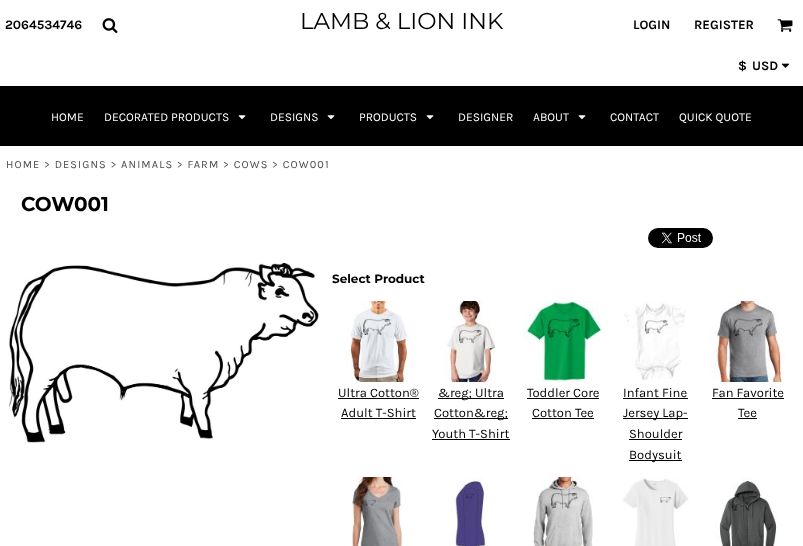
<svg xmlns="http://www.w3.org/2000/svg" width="803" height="546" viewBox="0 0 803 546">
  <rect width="100%" height="100%" fill="#ffffff"/>
  <text x="5" y="29" font-family="Karla" font-size="13" font-weight="bold" fill="#000000">2064534746</text>
  <image x="102" y="18" width="16" height="15" href="img1.png"/>
  <text x="300" y="29" font-family="Montserrat" font-size="23" font-weight="100" fill="#000000">LAMB &amp; LION INK</text>
  <text x="633" y="29" font-family="Karla" font-size="13" font-weight="bold" fill="#000000">LOGIN</text>
  <text x="694" y="29" font-family="Karla" font-size="13" font-weight="bold" fill="#000000">REGISTER</text>
  <image x="777" y="19" width="16" height="13" href="img2.png"/>
  <text x="738" y="70" font-family="Karla" font-size="13" font-weight="bold" fill="#000000">$</text>
  <text x="752" y="70" font-family="Karla" font-size="13" font-weight="bold" fill="#000000">USD</text>
  <image x="781" y="63" width="9" height="5" href="img3.png"/>
  <rect x="0" y="86" width="803" height="60" fill="#000000"/>
  <text x="51" y="121" font-family="Karla" font-size="12" fill="#ffffff">HOME</text>
  <text x="104" y="121" font-family="Karla" font-size="12" fill="#ffffff">DECORATED PRODUCTS</text>
  <image x="238" y="115" width="8" height="5" href="img4.png"/>
  <text x="270" y="121" font-family="Karla" font-size="12" fill="#ffffff">DESIGNS</text>
  <image x="327" y="115" width="8" height="5" href="img4.png"/>
  <text x="359" y="121" font-family="Karla" font-size="12" fill="#ffffff">PRODUCTS</text>
  <image x="426" y="115" width="8" height="5" href="img4.png"/>
  <text x="458" y="121" font-family="Karla" font-size="12" fill="#ffffff">DESIGNER</text>
  <text x="533" y="121" font-family="Karla" font-size="12" fill="#ffffff">ABOUT</text>
  <image x="578" y="115" width="8" height="5" href="img4.png"/>
  <text x="610" y="121" font-family="Karla" font-size="12" fill="#ffffff">CONTACT</text>
  <text x="679" y="121" font-family="Karla" font-size="12" fill="#ffffff">QUICK QUOTE</text>
  <text x="6" y="168" font-family="Karla" font-size="11" letter-spacing="1.1" fill="#4d4d4d">HOME &gt; DESIGNS &gt; ANIMALS &gt; FARM &gt; COWS &gt; COW001</text>
  <text x="21" y="211" font-family="'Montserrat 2'" font-size="20" font-weight="100" fill="#000000">COW001</text>
  <image x="648" y="228" width="65" height="20" href="img5.png"/>
  <image x="9" y="263" width="310" height="180" href="img6.png"/>
  <text x="332" y="283" font-family="'Montserrat 2'" font-size="12" font-weight="100" fill="#000000">Select Product</text>
  <image x="350" y="301" width="66" height="81" href="img7.png"/>
  <text x="338" y="397" font-family="Karla" font-size="13" fill="#000000">Ultra Cotton®</text>
  <rect x="338" y="398" width="81" height="1" fill="#000000"/>
  <text x="341" y="417" font-family="Karla" font-size="13" fill="#000000">Adult T-Shirt</text>
  <rect x="341" y="418" width="75" height="1" fill="#000000"/>
  <image x="444" y="301" width="51" height="81" href="img8.png"/>
  <rect x="438" y="398" width="66" height="1" fill="#000000"/>
  <text x="438" y="397" font-family="Karla" font-size="13" fill="#000000">&amp;reg; Ultra</text>
  <rect x="434" y="418" width="74" height="1" fill="#000000"/>
  <text x="434" y="417" font-family="Karla" font-size="13" fill="#000000">Cotton&amp;reg;</text>
  <text x="432" y="438" font-family="Karla" font-size="13" fill="#000000">Youth T-Shirt</text>
  <rect x="432" y="439" width="78" height="1" fill="#000000"/>
  <image x="523" y="301" width="80" height="81" href="img9.png"/>
  <text x="527" y="397" font-family="Karla" font-size="13" fill="#000000">Toddler Core</text>
  <rect x="527" y="398" width="72" height="1" fill="#000000"/>
  <text x="532" y="417" font-family="Karla" font-size="13" fill="#000000">Cotton Tee</text>
  <rect x="532" y="418" width="62" height="1" fill="#000000"/>
  <image x="624" y="301" width="62" height="81" href="img10.png"/>
  <text x="623" y="397" font-family="Karla" font-size="13" fill="#000000">Infant Fine</text>
  <rect x="623" y="398" width="65" height="1" fill="#000000"/>
  <rect x="623" y="418" width="65" height="1" fill="#000000"/>
  <text x="623" y="417" font-family="Karla" font-size="13" fill="#000000">Jersey Lap-</text>
  <text x="629" y="438" font-family="Karla" font-size="13" fill="#000000">Shoulder</text>
  <rect x="629" y="439" width="53" height="1" fill="#000000"/>
  <rect x="629" y="460" width="53" height="1" fill="#000000"/>
  <text x="629" y="459" font-family="Karla" font-size="13" fill="#000000">Bodysuit</text>
  <image x="708" y="301" width="77" height="81" href="img11.png"/>
  <text x="712" y="397" font-family="Karla" font-size="13" fill="#000000">Fan Favorite</text>
  <rect x="712" y="398" width="72" height="1" fill="#000000"/>
  <text x="738" y="417" font-family="Karla" font-size="13" fill="#000000">Tee</text>
  <rect x="738" y="418" width="19" height="1" fill="#000000"/>
  <image x="351" y="477" width="52" height="69" href="img12.png"/>
  <image x="450" y="477" width="40" height="69" href="img13.png"/>
  <image x="533" y="477" width="60" height="69" href="img14.png"/>
  <image x="622" y="477" width="67" height="69" href="img15.png"/>
  <image x="715" y="477" width="63" height="69" href="img16.png"/>
</svg>
